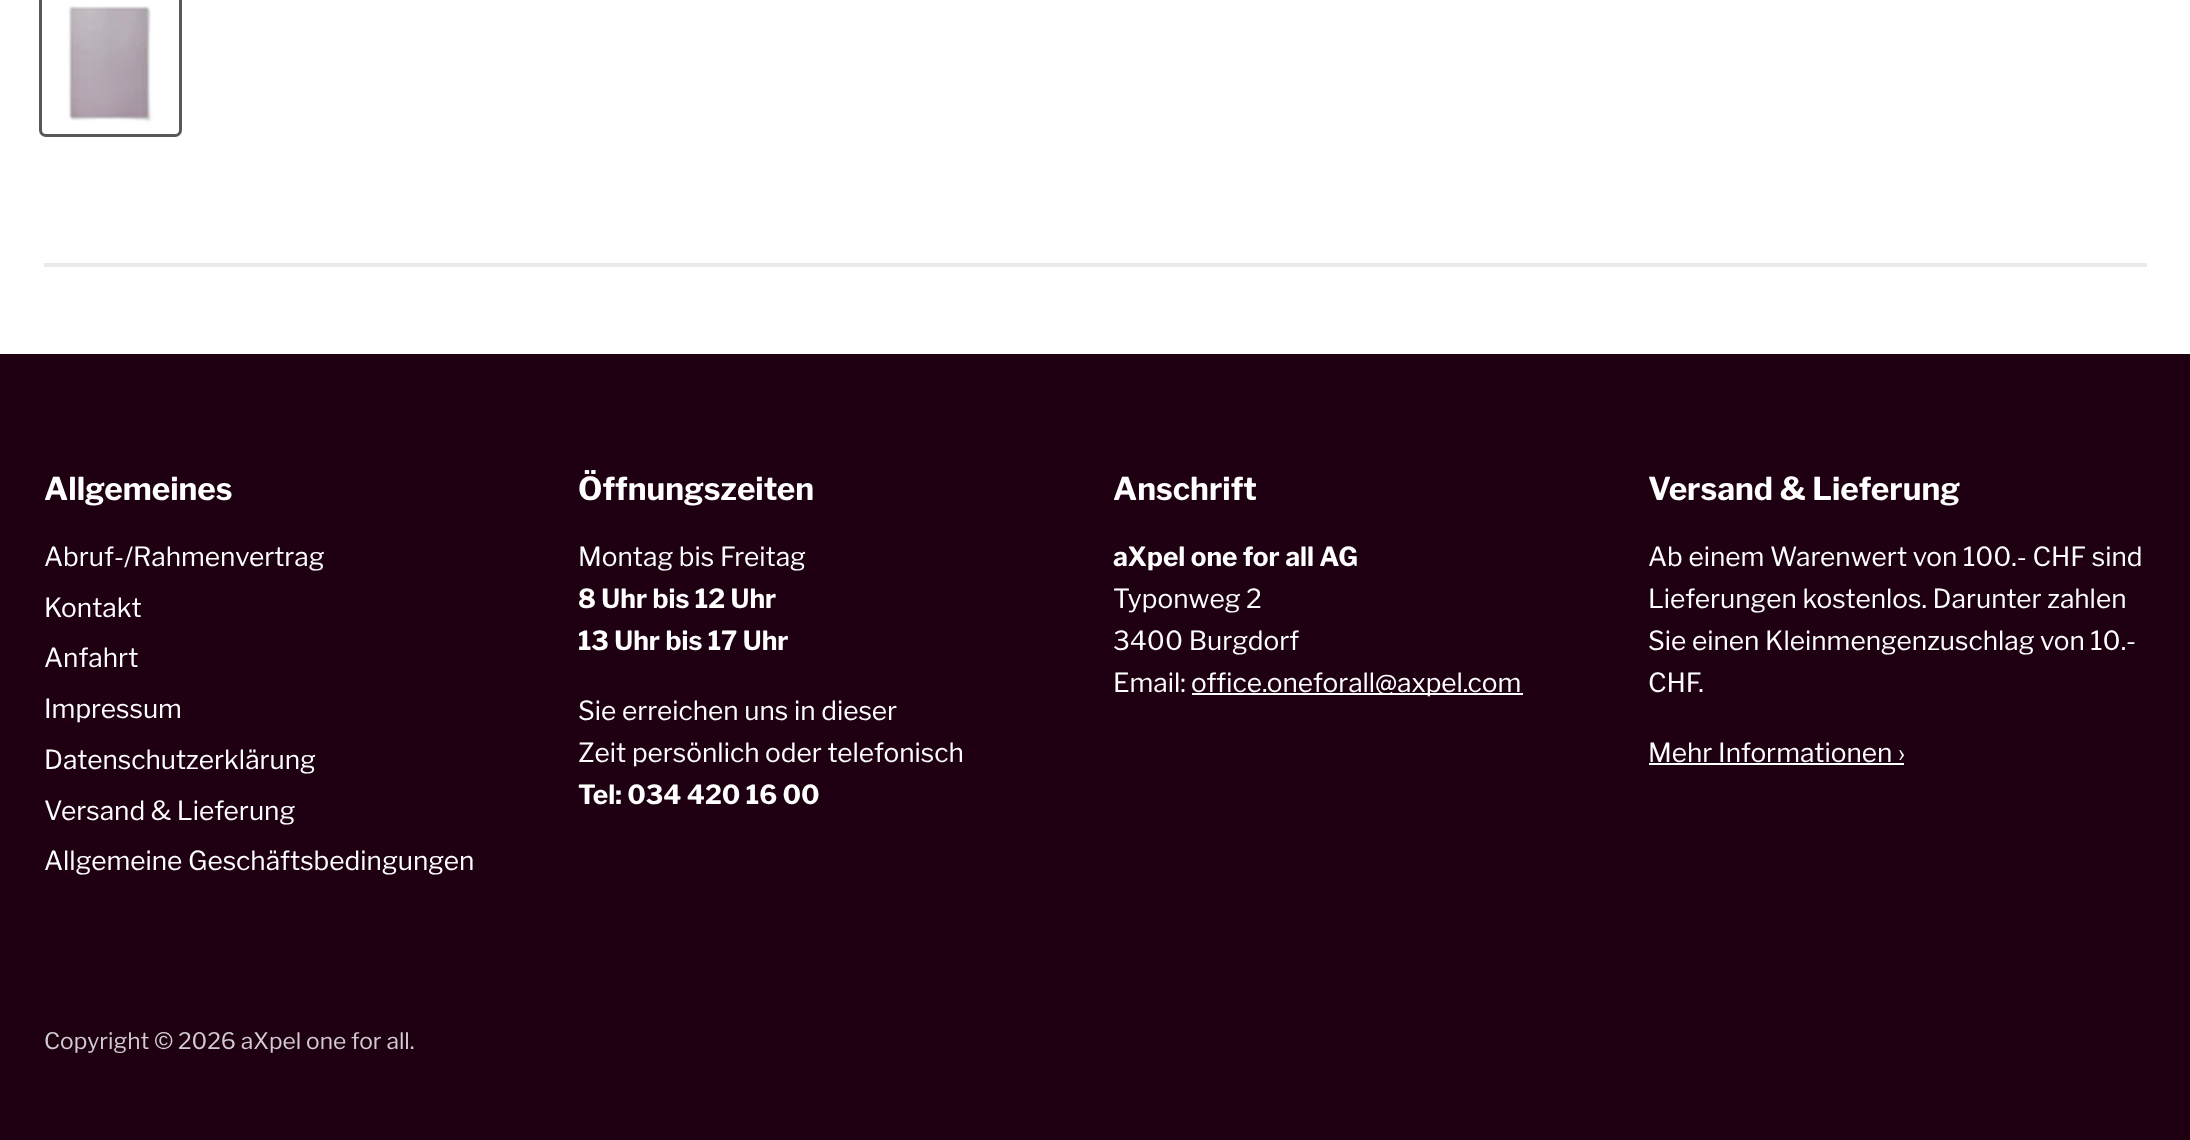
<svg xmlns="http://www.w3.org/2000/svg" width="2190" height="1140" viewBox="0 0 2190 1140">
  <rect width="100%" height="100%" fill="#ffffff"/>
  <rect x="40.5" y="-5.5" width="140" height="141" rx="5.5" fill="none" stroke="#585858" stroke-width="3"/>
  <image x="67" y="6" width="86" height="117" href="img1.png"/>
  <rect x="44" y="263" width="2103" height="4" fill="#7f7f7f" fill-opacity="0.16"/>
  <rect x="0" y="354" width="2190" height="786" fill="#1e0012"/>
  <text x="44" y="500" font-family="Libre Franklin" font-size="31.5" font-weight="bold" fill="#ffffff">Allgemeines</text>
  <text x="44" y="566" font-family="Libre Franklin" font-size="26.25" fill="#ffffff">Abruf-/Rahmenvertrag</text>
  <text x="44" y="617" font-family="Libre Franklin" font-size="26.25" fill="#ffffff">Kontakt</text>
  <text x="44" y="667" font-family="Libre Franklin" font-size="26.25" fill="#ffffff">Anfahrt</text>
  <text x="44" y="718" font-family="Libre Franklin" font-size="26.25" fill="#ffffff">Impressum</text>
  <text x="44" y="769" font-family="Libre Franklin" font-size="26.25" fill="#ffffff">Datenschutzerklärung</text>
  <text x="44" y="820" font-family="Libre Franklin" font-size="26.25" fill="#ffffff">Versand &amp; Lieferung</text>
  <text x="44" y="870" font-family="Libre Franklin" font-size="26.25" fill="#ffffff">Allgemeine Geschäftsbedingungen</text>
  <text x="578" y="500" font-family="Libre Franklin" font-size="31.5" font-weight="bold" fill="#ffffff">Öffnungszeiten</text>
  <text x="578" y="566" font-family="Libre Franklin" font-size="26.25" fill="#ffffff">Montag bis Freitag</text>
  <text x="578" y="608" font-family="Libre Franklin" font-size="26.25" font-weight="bold" fill="#ffffff">8 Uhr bis 12 Uhr</text>
  <text x="578" y="650" font-family="Libre Franklin" font-size="26.25" font-weight="bold" fill="#ffffff">13 Uhr bis 17 Uhr</text>
  <text x="578" y="720" font-family="Libre Franklin" font-size="26.25" fill="#ffffff">Sie erreichen uns in dieser</text>
  <text x="578" y="762" font-family="Libre Franklin" font-size="26.25" fill="#ffffff">Zeit persönlich oder telefonisch</text>
  <text x="578" y="804" font-family="Libre Franklin" font-size="26.25" font-weight="bold" fill="#ffffff">Tel: 034 420 16 00</text>
  <text x="1113" y="500" font-family="Libre Franklin" font-size="31.5" font-weight="bold" fill="#ffffff">Anschrift</text>
  <text x="1113" y="566" font-family="Libre Franklin" font-size="26.25" font-weight="bold" fill="#ffffff">aXpel one for all AG</text>
  <text x="1113" y="608" font-family="Libre Franklin" font-size="26.25" fill="#ffffff">Typonweg 2</text>
  <text x="1113" y="650" font-family="Libre Franklin" font-size="26.25" fill="#ffffff">3400 Burgdorf</text>
  <text x="1113" y="692" font-family="Libre Franklin" font-size="26.25" fill="#ffffff">Email:</text>
  <rect x="1192" y="693" width="331" height="2" fill="#ffffff"/>
  <text x="1191" y="692" font-family="Libre Franklin" font-size="26.25" fill="#ffffff">office.oneforall@axpel.com</text>
  <text x="1648" y="500" font-family="Libre Franklin" font-size="31.5" font-weight="bold" fill="#ffffff">Versand &amp; Lieferung</text>
  <text x="1648" y="566" font-family="Libre Franklin" font-size="26.25" fill="#ffffff">Ab einem Warenwert von 100.- CHF sind</text>
  <text x="1648" y="608" font-family="Libre Franklin" font-size="26.25" fill="#ffffff">Lieferungen kostenlos. Darunter zahlen</text>
  <text x="1648" y="650" font-family="Libre Franklin" font-size="26.25" fill="#ffffff">Sie einen Kleinmengenzuschlag von 10.-</text>
  <text x="1648" y="692" font-family="Libre Franklin" font-size="26.25" fill="#ffffff">CHF.</text>
  <text x="1648" y="762" font-family="Libre Franklin" font-size="26.25" fill="#ffffff">Mehr Informationen ›</text>
  <rect x="1649" y="763" width="255" height="2" fill="#ffffff"/>
  <text x="44" y="1049" font-family="Libre Franklin" font-size="22.75" fill="#d2ccd0">Copyright © 2026 aXpel one for all.</text>
</svg>
